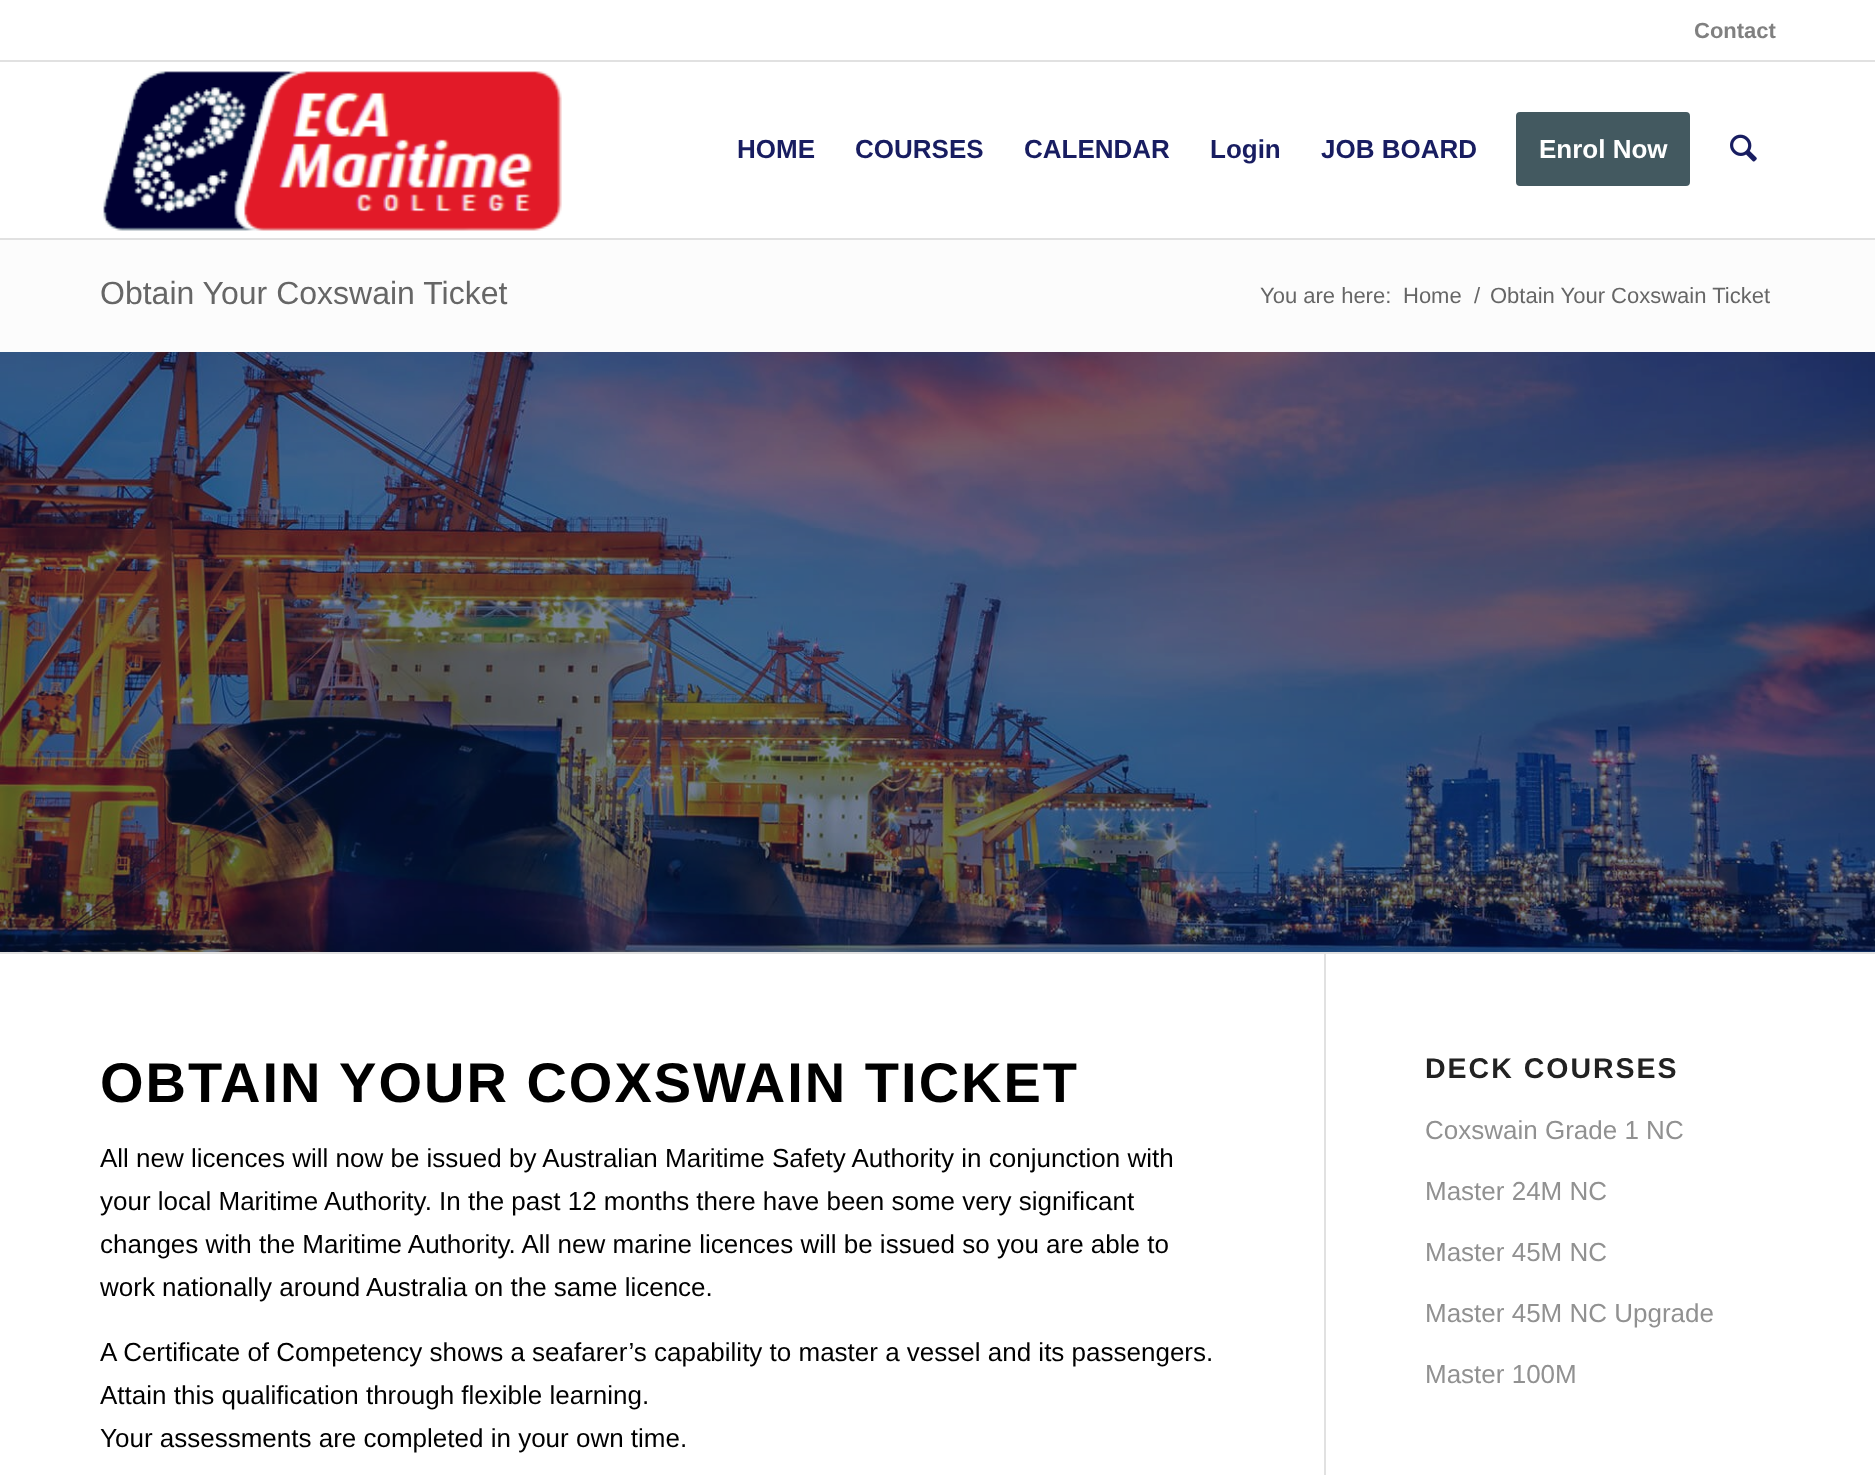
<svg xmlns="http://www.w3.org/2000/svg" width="1875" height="1475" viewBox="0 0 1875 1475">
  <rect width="100%" height="100%" fill="#ffffff"/>
  <rect x="0" y="60" width="1875" height="2" fill="#e1e1e1"/>
  <text x="1694" y="38" font-family="Liberation Sans" font-size="22" font-weight="bold" fill="#808080">Contact</text>
  <rect x="0" y="238" width="1875" height="2" fill="#e1e1e1"/>
  <image x="103" y="71" width="459" height="160" href="img1.png"/>
  <text x="737" y="158" font-family="Liberation Sans" font-size="26" font-weight="bold" fill="#181d61">HOME</text>
  <text x="855" y="158" font-family="Liberation Sans" font-size="26" font-weight="bold" fill="#181d61">COURSES</text>
  <text x="1024" y="158" font-family="Liberation Sans" font-size="26" font-weight="bold" fill="#181d61">CALENDAR</text>
  <text x="1210" y="158" font-family="Liberation Sans" font-size="26" font-weight="bold" fill="#181d61">Login</text>
  <text x="1321" y="158" font-family="Liberation Sans" font-size="26" font-weight="bold" fill="#181d61">JOB BOARD</text>
  <rect x="1518" y="114" width="170" height="70" rx="2" fill="#435960" stroke="#435960" stroke-width="4"/>
  <text x="1539" y="158" font-family="Liberation Sans" font-size="26" font-weight="bold" fill="#ffffff">Enrol Now</text>
  <image x="1730" y="134" width="27" height="28" href="img2.png"/>
  <rect x="0" y="240" width="1875" height="112" fill="#fcfcfc"/>
  <text x="100" y="304" font-family="Liberation Sans" font-size="32" fill="#666666">Obtain Your Coxswain Ticket</text>
  <text x="1260" y="303" font-family="Liberation Sans" font-size="22" fill="#666666">You are here:</text>
  <text x="1403" y="303" font-family="Liberation Sans" font-size="22" fill="#666666">Home</text>
  <text x="1474" y="303" font-family="Liberation Sans" font-size="22" fill="#666666">/</text>
  <text x="1490" y="303" font-family="Liberation Sans" font-size="22" fill="#666666">Obtain Your Coxswain Ticket</text>
  <image x="0" y="352" width="1875" height="600" href="img3.png"/>
  <rect x="0" y="952" width="1875" height="2" fill="#e1e1e1"/>
  <rect x="1324" y="954" width="2" height="521" fill="#e1e1e1"/>
  <text x="100" y="1102" font-family="Liberation Sans" font-size="56" font-weight="bold" letter-spacing="2" fill="#000000">OBTAIN YOUR COXSWAIN TICKET</text>
  <text x="100" y="1167" font-family="Liberation Sans" font-size="26" fill="#000000">All new licences will now be issued by Australian Maritime Safety Authority in conjunction with</text>
  <text x="100" y="1210" font-family="Liberation Sans" font-size="26" fill="#000000">your local Maritime Authority. In the past 12 months there have been some very significant</text>
  <text x="100" y="1253" font-family="Liberation Sans" font-size="26" fill="#000000">changes with the Maritime Authority. All new marine licences will be issued so you are able to</text>
  <text x="100" y="1296" font-family="Liberation Sans" font-size="26" fill="#000000">work nationally around Australia on the same licence.</text>
  <text x="100" y="1361" font-family="Liberation Sans" font-size="26" fill="#000000">A Certificate of Competency shows a seafarer’s capability to master a vessel and its passengers.</text>
  <text x="100" y="1404" font-family="Liberation Sans" font-size="26" fill="#000000">Attain this qualification through flexible learning.</text>
  <text x="100" y="1447" font-family="Liberation Sans" font-size="26" fill="#000000">Your assessments are completed in your own time.</text>
  <text x="1425" y="1078" font-family="Liberation Sans" font-size="28.5" font-weight="bold" letter-spacing="2" fill="#222222">DECK COURSES</text>
  <text x="1425" y="1139" font-family="Liberation Sans" font-size="26" fill="#919191">Coxswain Grade 1 NC</text>
  <text x="1425" y="1200" font-family="Liberation Sans" font-size="26" fill="#919191">Master 24M NC</text>
  <text x="1425" y="1261" font-family="Liberation Sans" font-size="26" fill="#919191">Master 45M NC</text>
  <text x="1425" y="1322" font-family="Liberation Sans" font-size="26" fill="#919191">Master 45M NC Upgrade</text>
  <text x="1425" y="1383" font-family="Liberation Sans" font-size="26" fill="#919191">Master 100M</text>
</svg>
